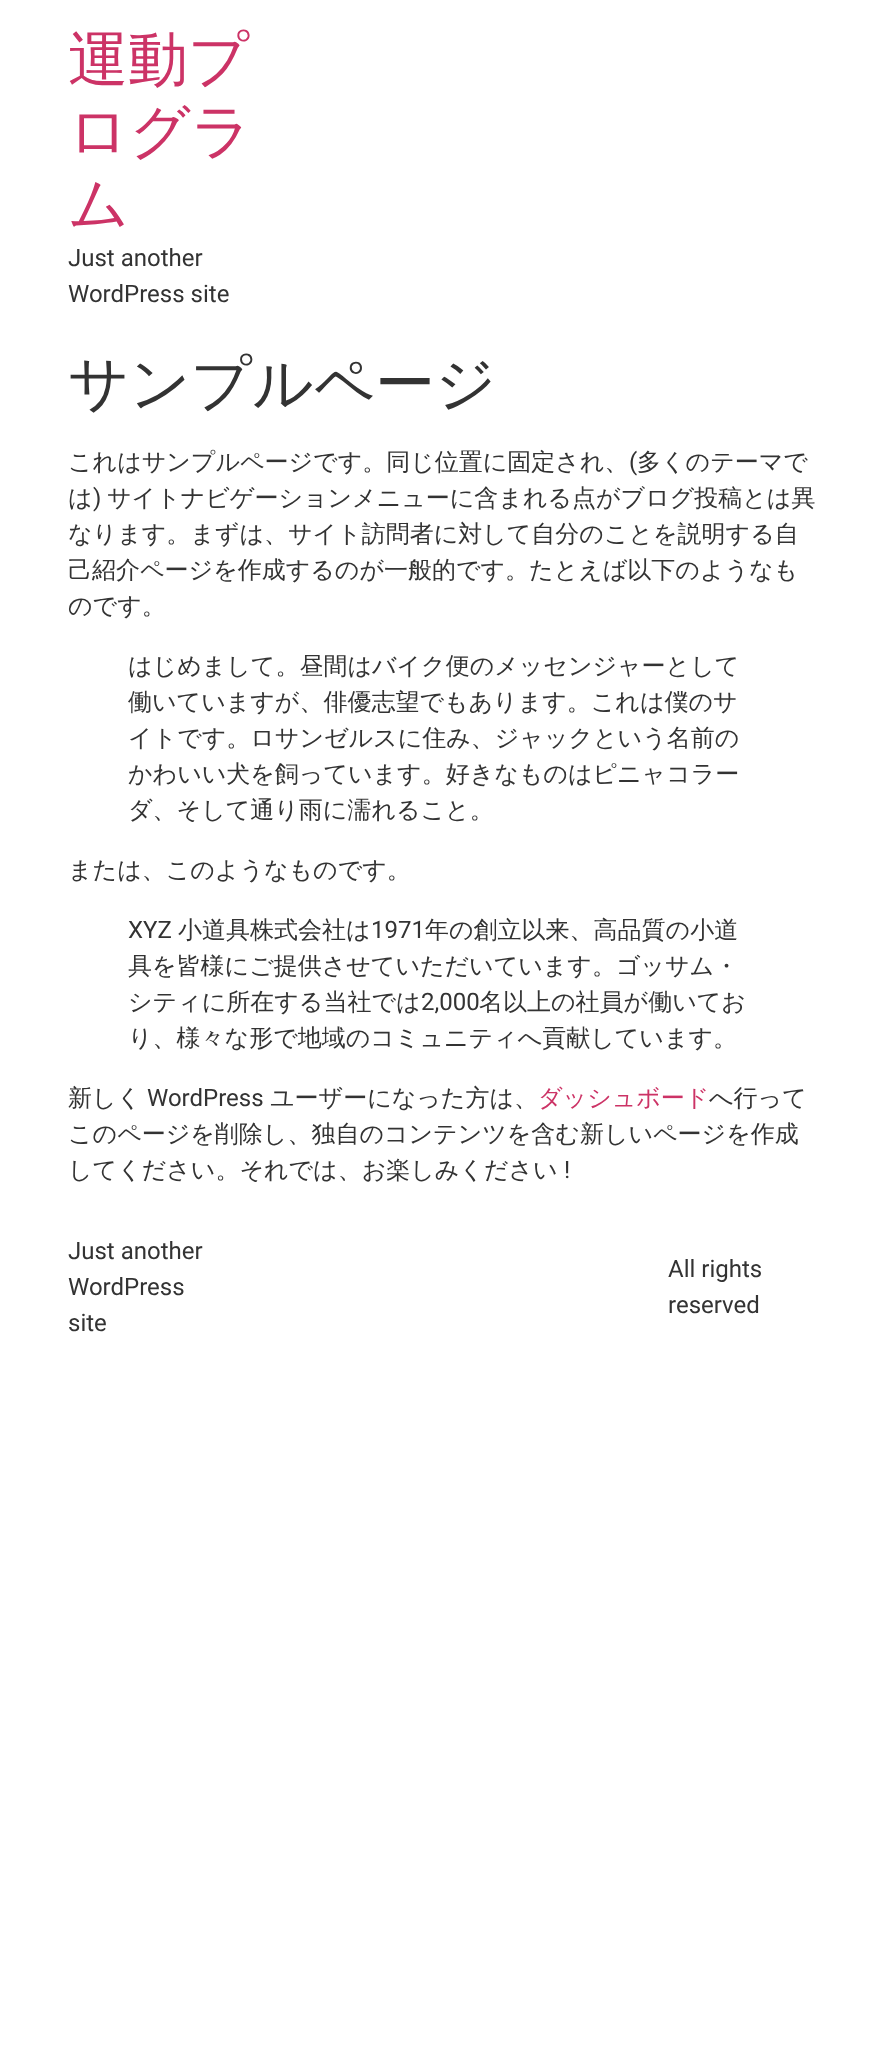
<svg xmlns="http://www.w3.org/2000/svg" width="886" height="2053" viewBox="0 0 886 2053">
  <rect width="100%" height="100%" fill="#ffffff"/>
  <text x="68" y="80" font-family="WenQuanYi Zen Hei" font-size="60" font-weight="500" fill="#cc3366">運動プ</text>
  <text x="68" y="152" font-family="WenQuanYi Zen Hei" font-size="60" font-weight="500" fill="#cc3366">ログラ</text>
  <text x="68" y="224" font-family="WenQuanYi Zen Hei" font-size="60" font-weight="500" fill="#cc3366">ム</text>
  <text x="68" y="266" font-family="Roboto" font-size="24" fill="#333333">Just another</text>
  <text x="68" y="302" font-family="Roboto" font-size="24" fill="#333333">WordPress site</text>
  <text x="68" y="404" font-family="WenQuanYi Zen Hei" font-size="60" font-weight="500" fill="#333333">サンプルページ</text>
  <text x="68" y="470" font-family="WenQuanYi Zen Hei" font-size="24" font-weight="500" fill="#333333">これはサンプルページです。同じ位置に固定され、</text>
  <text x="629" y="470" font-family="Roboto" font-size="24" fill="#333333">(</text>
  <text x="637" y="470" font-family="WenQuanYi Zen Hei" font-size="24" font-weight="500" fill="#333333">多くのテーマで</text>
  <text x="68" y="506" font-family="WenQuanYi Zen Hei" font-size="24" font-weight="500" fill="#333333">は</text>
  <text x="93" y="506" font-family="Roboto" font-size="24" fill="#333333">)</text>
  <text x="107" y="506" font-family="WenQuanYi Zen Hei" font-size="24" font-weight="500" fill="#333333">サイトナビゲーションメニューに含まれる点がブログ投稿とは異</text>
  <text x="68" y="542" font-family="WenQuanYi Zen Hei" font-size="24" font-weight="500" fill="#333333">なります。まずは、サイト訪問者に対して自分のことを説明する自</text>
  <text x="68" y="578" font-family="WenQuanYi Zen Hei" font-size="24" font-weight="500" fill="#333333">己紹介ページを作成するのが一般的です。たとえば以下のようなも</text>
  <text x="68" y="614" font-family="WenQuanYi Zen Hei" font-size="24" font-weight="500" fill="#333333">のです。</text>
  <text x="128" y="674" font-family="WenQuanYi Zen Hei" font-size="24" font-weight="500" fill="#333333">はじめまして。昼間はバイク便のメッセンジャーとして</text>
  <text x="128" y="710" font-family="WenQuanYi Zen Hei" font-size="24" font-weight="500" fill="#333333">働いていますが、俳優志望でもあります。これは僕のサ</text>
  <text x="128" y="746" font-family="WenQuanYi Zen Hei" font-size="24" font-weight="500" fill="#333333">イトです。ロサンゼルスに住み、ジャックという名前の</text>
  <text x="128" y="782" font-family="WenQuanYi Zen Hei" font-size="24" font-weight="500" fill="#333333">かわいい犬を飼っています。好きなものはピニャコラー</text>
  <text x="128" y="818" font-family="WenQuanYi Zen Hei" font-size="24" font-weight="500" fill="#333333">ダ、そして通り雨に濡れること。</text>
  <text x="68" y="878" font-family="WenQuanYi Zen Hei" font-size="24" font-weight="500" fill="#333333">または、このようなものです。</text>
  <text x="128" y="938" font-family="Roboto" font-size="24" fill="#333333">XYZ</text>
  <text x="178" y="938" font-family="WenQuanYi Zen Hei" font-size="24" font-weight="500" fill="#333333">小道具株式会社は</text>
  <text x="371" y="938" font-family="Roboto" font-size="24" fill="#333333">1971</text>
  <text x="425" y="938" font-family="WenQuanYi Zen Hei" font-size="24" font-weight="500" fill="#333333">年の創立以来、高品質の小道</text>
  <text x="128" y="974" font-family="WenQuanYi Zen Hei" font-size="24" font-weight="500" fill="#333333">具を皆様にご提供させていただいています。ゴッサム・</text>
  <text x="128" y="1010" font-family="WenQuanYi Zen Hei" font-size="24" font-weight="500" fill="#333333">シティに所在する当社では</text>
  <text x="421" y="1010" font-family="Roboto" font-size="24" fill="#333333">2,000</text>
  <text x="479" y="1010" font-family="WenQuanYi Zen Hei" font-size="24" font-weight="500" fill="#333333">名以上の社員が働いてお</text>
  <text x="128" y="1046" font-family="WenQuanYi Zen Hei" font-size="24" font-weight="500" fill="#333333">り、様々な形で地域のコミュニティへ貢献しています。</text>
  <text x="68" y="1106" font-family="WenQuanYi Zen Hei" font-size="24" font-weight="500" fill="#333333">新しく</text>
  <text x="147" y="1106" font-family="Roboto" font-size="24" fill="#333333">WordPress</text>
  <text x="270" y="1106" font-family="WenQuanYi Zen Hei" font-size="24" font-weight="500" fill="#333333">ユーザーになった方は、</text>
  <text x="538" y="1106" font-family="WenQuanYi Zen Hei" font-size="24" font-weight="500" fill="#cc3366">ダッシュボード</text>
  <text x="709" y="1106" font-family="WenQuanYi Zen Hei" font-size="24" font-weight="500" fill="#333333">へ行って</text>
  <text x="68" y="1142" font-family="WenQuanYi Zen Hei" font-size="24" font-weight="500" fill="#333333">このページを削除し、独自のコンテンツを含む新しいページを作成</text>
  <text x="68" y="1178" font-family="WenQuanYi Zen Hei" font-size="24" font-weight="500" fill="#333333">してください。それでは、お楽しみください</text>
  <text x="564" y="1178" font-family="Roboto" font-size="24" fill="#333333">!</text>
  <text x="68" y="1259" font-family="Roboto" font-size="24" fill="#333333">Just another</text>
  <text x="68" y="1295" font-family="Roboto" font-size="24" fill="#333333">WordPress</text>
  <text x="68" y="1331" font-family="Roboto" font-size="24" fill="#333333">site</text>
  <text x="668" y="1277" font-family="Roboto" font-size="24" fill="#333333">All rights</text>
  <text x="668" y="1313" font-family="Roboto" font-size="24" fill="#333333">reserved</text>
</svg>
